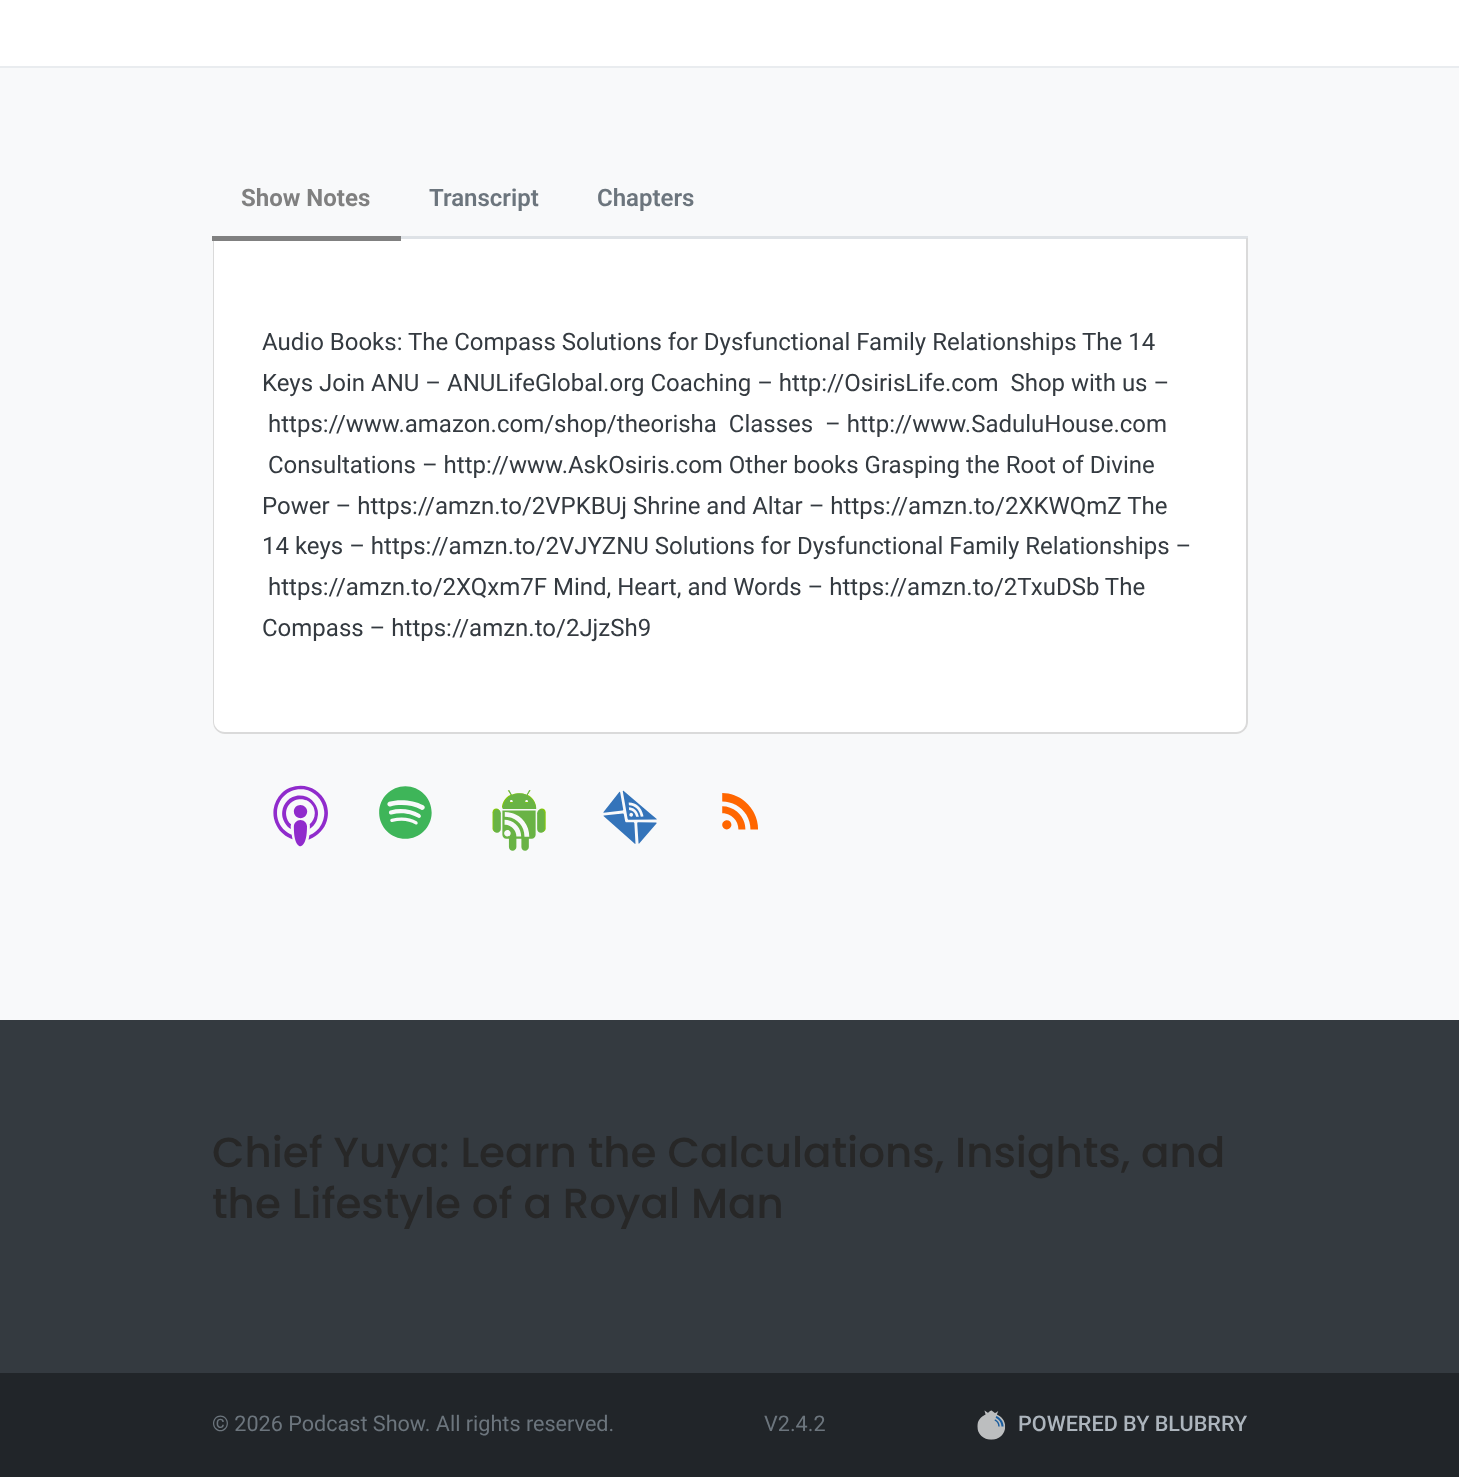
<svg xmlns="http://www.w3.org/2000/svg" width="1459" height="1477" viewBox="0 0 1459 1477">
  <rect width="100%" height="100%" fill="#f8f9fa"/>
  <rect x="0" y="0" width="1459" height="66" fill="#ffffff"/>
  <rect x="0" y="66" width="1459" height="2" fill="#e9ecef"/>
  <rect x="401" y="236" width="847" height="3" fill="#dee2e6"/>
  <path d="M213 239H1248V722C1248 728.5 1242.5 734 1236 734H225C218.5 734 213 728.5 213 722Z" fill="#ffffff"/>
  <path d="M213 238H1248V722C1248 728 1243 734 1236 734H225C218 734 213 728 213 722ZM214 238H1246V722C1246 727 1242 732 1236 732H225C219 732 214 727 214 722Z" fill="#dadada" fill-rule="evenodd"/>
  <rect x="212" y="236" width="189" height="5" fill="#808080"/>
  <text x="241" y="206" font-family="Roboto" font-size="24" font-weight="bold" fill="#808080">Show Notes</text>
  <text x="429" y="206" font-family="Roboto" font-size="24" font-weight="600" fill="#6c757d">Transcript</text>
  <text x="597" y="206" font-family="Roboto" font-size="24" font-weight="600" fill="#6c757d">Chapters</text>
  <text x="262" y="350" font-family="Roboto" font-size="24" fill="#343a40">Audio Books: The Compass Solutions for Dysfunctional Family Relationships The 14</text>
  <text x="262" y="391" font-family="Roboto" font-size="24" fill="#343a40" xml:space="preserve">Keys Join ANU – ANULifeGlobal.org Coaching – http://OsirisLife.com  Shop with us –</text>
  <text x="268" y="432" font-family="Roboto" font-size="24" fill="#343a40" xml:space="preserve">https://www.amazon.com/shop/theorisha  Classes  – http://www.SaduluHouse.com</text>
  <text x="268" y="473" font-family="Roboto" font-size="24" fill="#343a40">Consultations – http://www.AskOsiris.com Other books Grasping the Root of Divine</text>
  <text x="262" y="514" font-family="Roboto" font-size="24" fill="#343a40">Power – https://amzn.to/2VPKBUj Shrine and Altar – https://amzn.to/2XKWQmZ The</text>
  <text x="262" y="554" font-family="Roboto" font-size="24" fill="#343a40">14 keys – https://amzn.to/2VJYZNU Solutions for Dysfunctional Family Relationships –</text>
  <text x="268" y="595" font-family="Roboto" font-size="24" fill="#343a40">https://amzn.to/2XQxm7F Mind, Heart, and Words – https://amzn.to/2TxuDSb The</text>
  <text x="262" y="636" font-family="Roboto" font-size="24" fill="#343a40">Compass – https://amzn.to/2JjzSh9</text>
  <image x="273" y="785" width="55" height="62" href="img1.png"/>
  <image x="379" y="786" width="53" height="53" href="img2.png"/>
  <image x="492" y="790" width="54" height="61" href="img3.png"/>
  <image x="603" y="790" width="54" height="54" href="img4.png"/>
  <image x="722" y="793" width="36" height="37" href="img5.png"/>
  <rect x="0" y="1020" width="1459" height="353" fill="#343a40"/>
  <text x="212" y="1167" font-family="Poppins" font-size="42" font-weight="500" fill="#272727">Chief Yuya: Learn the Calculations, Insights, and</text>
  <text x="212" y="1218" font-family="Poppins" font-size="42" font-weight="500" fill="#272727">the Lifestyle of a Royal Man</text>
  <rect x="0" y="1373" width="1459" height="104" fill="#212529"/>
  <text x="212" y="1431" font-family="Roboto" font-size="21.6" fill="#6c757d">© 2026 Podcast Show. All rights reserved.</text>
  <text x="764" y="1431" font-family="Roboto" font-size="21.6" fill="#6c757d">V2.4.2</text>
  <image x="977" y="1410" width="29" height="30" href="img6.png"/>
  <text x="1018" y="1431" font-family="Roboto" font-size="21.6" font-weight="500" fill="#adb5bd">POWERED BY BLUBRRY</text>
</svg>
